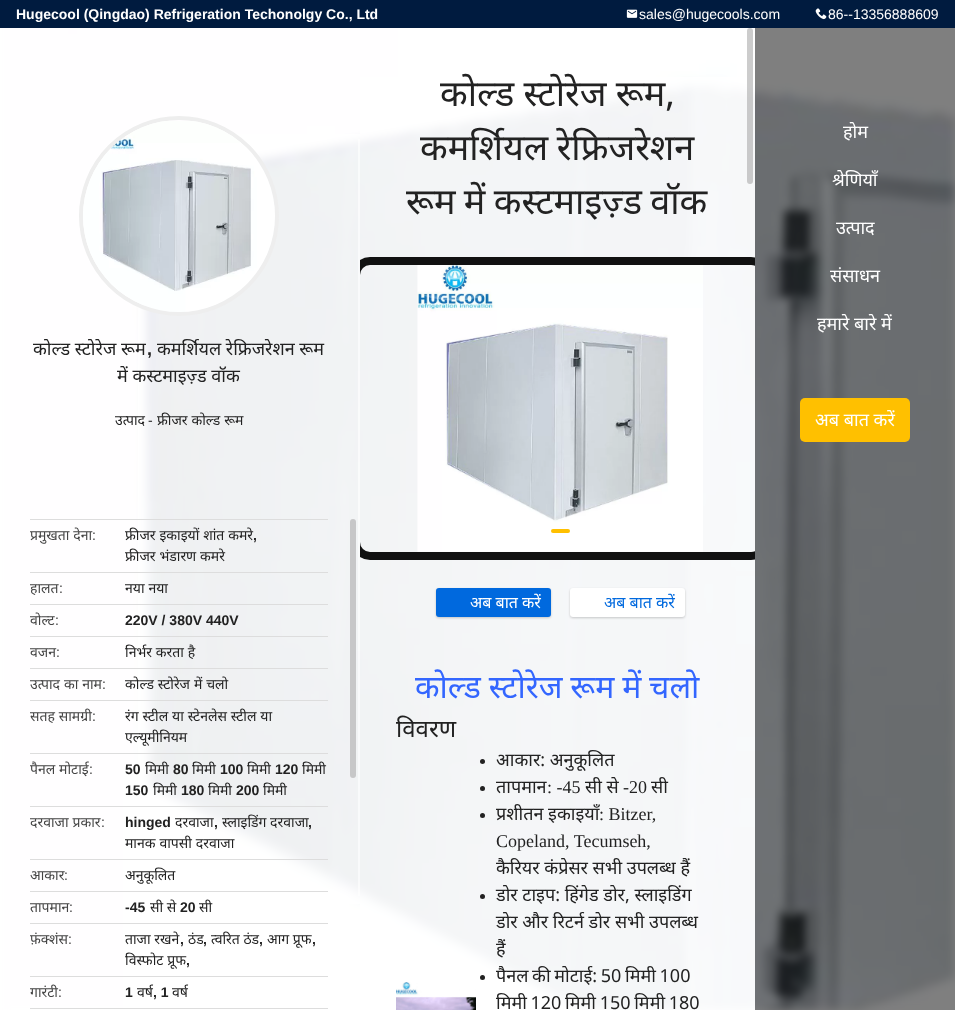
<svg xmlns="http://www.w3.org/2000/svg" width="955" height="1010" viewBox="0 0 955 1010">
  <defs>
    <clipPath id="clip1"><rect x="360" y="28" width="395" height="982"/></clipPath>
    <filter id="blur1" x="-50%" y="-200%" width="200%" height="500%"><feGaussianBlur stdDeviation="1"/></filter>
    <clipPath id="clip2"><rect x="30" y="605" width="298" height="31"/></clipPath>
    <clipPath id="clip3"><rect x="30" y="754" width="298" height="52"/></clipPath>
    <clipPath id="clip4"><rect x="30" y="924" width="298" height="52"/></clipPath>
  </defs>
  <rect width="100%" height="100%" fill="#ffffff"/>
  <rect x="0" y="0" width="955" height="28" fill="#001b3f"/>
  <text x="16" y="19" font-family="Liberation Sans" font-size="14" font-weight="bold" fill="#ffffff">Hugecool (Qingdao) Refrigeration Techonolgy Co., Ltd</text>
  <image x="626" y="9" width="12" height="9" href="img1.png"/>
  <text x="639" y="19" font-family="Liberation Sans" font-size="14" fill="#ffffff">sales@hugecools.com</text>
  <image x="815" y="8" width="12" height="12" href="img2.png"/>
  <text x="828" y="19" font-family="Liberation Sans" font-size="14" fill="#ffffff">86--13356888609</text>
  <image x="0" y="28" width="955" height="982" href="img3.png"/>
  <rect x="360" y="77" width="395" height="933" fill="#ffffff" fill-opacity="0.8"/>
  <text x="440" y="106" font-family="Noto Sans" font-size="36" fill="#222222">कोल्ड स्टोरेज रूम,</text>
  <text x="420" y="160" word-spacing="-1" font-family="Noto Sans" font-size="36" fill="#222222">कमर्शियल रेफ्रिजरेशन</text>
  <text x="406" y="214" word-spacing="-1" font-family="Noto Sans" font-size="36" fill="#222222">रूम में कस्टमाइज़्ड वॉक</text>
  <rect x="747" y="28" width="6" height="156" rx="3" fill="#aaaaaa" fill-opacity="0.6"/>
  <rect x="755" y="28" width="200" height="982" fill="#000000" fill-opacity="0.5"/>
  <rect x="138" y="134" width="222" height="770" fill="#ffffff" fill-opacity="0.8"/>
  <rect x="358" y="139" width="2" height="757" fill="#ffffff" fill-opacity="0.6"/>
  <rect x="350" y="519" width="6" height="259" rx="3" fill="#c7c7c8"/>
  <g clip-path="url(#clip1)">
    <rect x="356" y="261" width="409" height="295" rx="14" fill="none" stroke="#111111" stroke-width="8"/>
  </g>
  <image x="417" y="265" width="286" height="287" href="img4.png"/>
  <rect x="551" y="529" width="19" height="4" rx="2" fill="#ffc000"/>
  <rect x="436" y="589" width="115" height="29" rx="3" fill="#000000" fill-opacity="0.2" filter="url(#blur1)"/>
  <rect x="436" y="588" width="115" height="29" rx="3" fill="#0069de"/>
  <text x="470" y="608" font-family="Noto Sans" font-size="16" fill="#ffffff">अब बात करें</text>
  <rect x="570" y="589" width="115" height="29" rx="3" fill="#000000" fill-opacity="0.2" filter="url(#blur1)"/>
  <rect x="570" y="588" width="115" height="29" rx="3" fill="#ffffff"/>
  <text x="604" y="608" font-family="Noto Sans" font-size="16" fill="#0069de">अब बात करें</text>
  <text x="415" y="698" word-spacing="-0.5" font-family="Noto Sans" font-size="32" fill="#3366ff">कोल्ड स्टोरेज रूम में चलो</text>
  <text x="396" y="737" font-family="Noto Sans" font-size="24" fill="#222222">विवरण</text>
  <image x="396" y="982" width="80" height="28" href="img5.png"/>
  <circle cx="482.5" cy="761.5" r="2.5" fill="#222222"/>
  <text x="496" y="766" font-family="Noto Sans" font-size="18" fill="#222222">आकार: अनुकूलित</text>
  <circle cx="482.5" cy="788.5" r="2.5" fill="#222222"/>
  <text x="496" y="793" font-family="Noto Sans" font-size="18" fill="#222222">तापमान</text>
  <text x="547" y="793" font-family="Liberation Serif" font-size="18" fill="#222222">: -45</text>
  <text x="585" y="793" font-family="Noto Sans" font-size="18" fill="#222222">सी से</text>
  <text x="623" y="793" font-family="Liberation Serif" font-size="18" fill="#222222">-20</text>
  <text x="651" y="793" font-family="Noto Sans" font-size="18" fill="#222222">सी</text>
  <circle cx="482.5" cy="815.5" r="2.5" fill="#222222"/>
  <text x="496" y="820" font-family="Noto Sans" font-size="18" fill="#222222">प्रशीतन इकाइयाँ</text>
  <text x="599" y="820" font-family="Liberation Serif" font-size="18" fill="#222222">: Bitzer,</text>
  <text x="496" y="847" font-family="Liberation Serif" font-size="18" fill="#222222">Copeland, Tecumseh,</text>
  <text x="496" y="874" font-family="Noto Sans" font-size="18" fill="#222222">कैरियर कंप्रेसर सभी उपलब्ध हैं</text>
  <circle cx="482.5" cy="896.5" r="2.5" fill="#222222"/>
  <text x="496" y="901" font-family="Noto Sans" font-size="18" fill="#222222">डोर टाइप: हिंगेड डोर, स्लाइडिंग</text>
  <text x="496" y="928" font-family="Noto Sans" font-size="18" fill="#222222">डोर और रिटर्न डोर सभी उपलब्ध</text>
  <text x="496" y="955" font-family="Noto Sans" font-size="18" fill="#222222">हैं</text>
  <circle cx="482.5" cy="977.5" r="2.5" fill="#222222"/>
  <text x="496" y="982" word-spacing="-1" font-family="Noto Sans" font-size="18" fill="#222222">पैनल की मोटाई: 50 मिमी 100</text>
  <text x="496" y="1009" word-spacing="-1" font-family="Noto Sans" font-size="18" fill="#222222">मिमी 120 मिमी 150 मिमी 180</text>
  <text x="843" y="138" font-family="Noto Sans" font-size="18" fill="#ffffff">होम</text>
  <text x="832" y="186" font-family="Noto Sans" font-size="18" fill="#ffffff">श्रेणियाँ</text>
  <text x="836" y="234" font-family="Noto Sans" font-size="18" fill="#ffffff">उत्पाद</text>
  <text x="830" y="282" font-family="Noto Sans" font-size="18" fill="#ffffff">संसाधन</text>
  <text x="817" y="330" font-family="Noto Sans" font-size="18" fill="#ffffff">हमारे बारे में</text>
  <rect x="800" y="398" width="110" height="44" rx="5" fill="#ffc000"/>
  <text x="815" y="426" font-family="Noto Sans" font-size="18" fill="#ffffff">अब बात करें</text>
  <circle cx="179" cy="216" r="98" fill="none" stroke="#eeeeee" stroke-width="4"/>
  <image x="83" y="121" width="192" height="191" href="img6.png"/>
  <text x="33" y="355" font-family="Noto Sans" font-size="18" fill="#222222">कोल्ड स्टोरेज रूम</text>
  <text x="147" y="355" font-family="Liberation Sans" font-size="18" font-weight="bold" fill="#222222">,</text>
  <text x="157" y="355" font-family="Noto Sans" font-size="18" fill="#222222">कमर्शियल रेफ्रिजरेशन रूम</text>
  <text x="117" y="382" font-family="Noto Sans" font-size="18" fill="#222222">में कस्टमाइज़्ड वॉक</text>
  <text x="115" y="425" font-family="Noto Sans" font-size="14" fill="#222222">उत्पाद</text>
  <text x="148" y="425" font-family="Liberation Sans" font-size="14" fill="#222222">-</text>
  <text x="157" y="425" word-spacing="0.25" font-family="Noto Sans" font-size="14" fill="#222222">फ्रीजर कोल्ड रूम</text>
  <rect x="30" y="519" width="298" height="1" fill="#dddddd"/>
  <text x="30" y="540" word-spacing="0.25" font-family="Noto Sans" font-size="14" fill="#444444">प्रमुखता देना</text>
  <text x="92" y="540" font-family="Liberation Sans" font-size="14" fill="#444444">:</text>
  <text x="125" y="540" word-spacing="0.25" font-family="Noto Sans" font-size="14" fill="#222222">फ्रीजर इकाइयों शांत कमरे</text>
  <text x="253" y="540" font-family="Liberation Sans" font-size="14" font-weight="bold" fill="#222222">,</text>
  <text x="125" y="561" word-spacing="0.25" font-family="Noto Sans" font-size="14" fill="#222222">फ्रीजर भंडारण कमरे</text>
  <rect x="30" y="572" width="298" height="1" fill="#dddddd"/>
  <text x="30" y="593" font-family="Noto Sans" font-size="14" fill="#444444">हालत</text>
  <text x="59" y="593" font-family="Liberation Sans" font-size="14" fill="#444444">:</text>
  <text x="125" y="593" word-spacing="0.25" font-family="Noto Sans" font-size="14" fill="#222222">नया नया</text>
  <rect x="30" y="604" width="298" height="1" fill="#dddddd"/>
  <g clip-path="url(#clip2)">
    <text x="30" y="625" font-family="Noto Sans" font-size="14" fill="#444444">वोल्ट</text>
  </g>
  <text x="55" y="625" font-family="Liberation Sans" font-size="14" fill="#444444">:</text>
  <text x="125" y="625" font-family="Liberation Sans" font-size="14" font-weight="bold" fill="#222222">220V / 380V 440V</text>
  <rect x="30" y="636" width="298" height="1" fill="#dddddd"/>
  <text x="30" y="657" font-family="Noto Sans" font-size="14" fill="#444444">वजन</text>
  <text x="56" y="657" font-family="Liberation Sans" font-size="14" fill="#444444">:</text>
  <text x="125" y="657" word-spacing="0.25" font-family="Noto Sans" font-size="14" fill="#222222">निर्भर करता है</text>
  <rect x="30" y="668" width="298" height="1" fill="#dddddd"/>
  <text x="30" y="689" word-spacing="0.25" font-family="Noto Sans" font-size="14" fill="#444444">उत्पाद का नाम</text>
  <text x="102" y="689" font-family="Liberation Sans" font-size="14" fill="#444444">:</text>
  <text x="125" y="689" word-spacing="0.25" font-family="Noto Sans" font-size="14" fill="#222222">कोल्ड स्टोरेज में चलो</text>
  <rect x="30" y="700" width="298" height="1" fill="#dddddd"/>
  <text x="30" y="721" word-spacing="0.25" font-family="Noto Sans" font-size="14" fill="#444444">सतह सामग्री</text>
  <text x="92" y="721" font-family="Liberation Sans" font-size="14" fill="#444444">:</text>
  <text x="125" y="721" word-spacing="0.25" font-family="Noto Sans" font-size="14" fill="#222222">रंग स्टील या स्टेनलेस स्टील या</text>
  <text x="125" y="742" font-family="Noto Sans" font-size="14" fill="#222222">एल्यूमीनियम</text>
  <rect x="30" y="753" width="298" height="1" fill="#dddddd"/>
  <g clip-path="url(#clip3)">
    <text x="30" y="774" word-spacing="0.25" font-family="Noto Sans" font-size="14" fill="#444444">पैनल मोटाई</text>
  </g>
  <text x="89" y="774" font-family="Liberation Sans" font-size="14" fill="#444444">:</text>
  <text x="125" y="774" font-family="Liberation Sans" font-size="14" font-weight="bold" fill="#222222">50</text>
  <text x="145" y="774" font-family="Noto Sans" font-size="14" fill="#222222">मिमी</text>
  <text x="173" y="774" font-family="Liberation Sans" font-size="14" font-weight="bold" fill="#222222">80</text>
  <text x="192" y="774" font-family="Noto Sans" font-size="14" fill="#222222">मिमी</text>
  <text x="220" y="774" font-family="Liberation Sans" font-size="14" font-weight="bold" fill="#222222">100</text>
  <text x="247" y="774" font-family="Noto Sans" font-size="14" fill="#222222">मिमी</text>
  <text x="275" y="774" font-family="Liberation Sans" font-size="14" font-weight="bold" fill="#222222">120</text>
  <text x="302" y="774" font-family="Noto Sans" font-size="14" fill="#222222">मिमी</text>
  <text x="125" y="795" font-family="Liberation Sans" font-size="14" font-weight="bold" fill="#222222">150</text>
  <text x="153" y="795" font-family="Noto Sans" font-size="14" fill="#222222">मिमी</text>
  <text x="181" y="795" font-family="Liberation Sans" font-size="14" font-weight="bold" fill="#222222">180</text>
  <text x="208" y="795" font-family="Noto Sans" font-size="14" fill="#222222">मिमी</text>
  <text x="236" y="795" font-family="Liberation Sans" font-size="14" font-weight="bold" fill="#222222">200</text>
  <text x="263" y="795" font-family="Noto Sans" font-size="14" fill="#222222">मिमी</text>
  <rect x="30" y="806" width="298" height="1" fill="#dddddd"/>
  <text x="30" y="827" word-spacing="0.25" font-family="Noto Sans" font-size="14" fill="#444444">दरवाजा प्रकार</text>
  <text x="101" y="827" font-family="Liberation Sans" font-size="14" fill="#444444">:</text>
  <text x="125" y="827" font-family="Liberation Sans" font-size="14" font-weight="bold" fill="#222222">hinged</text>
  <text x="175" y="827" font-family="Noto Sans" font-size="14" fill="#222222">दरवाजा</text>
  <text x="214" y="827" font-family="Liberation Sans" font-size="14" font-weight="bold" fill="#222222">,</text>
  <text x="222" y="827" font-family="Noto Sans" font-size="14" fill="#222222">स्लाइडिंग दरवाजा</text>
  <text x="308" y="827" font-family="Liberation Sans" font-size="14" font-weight="bold" fill="#222222">,</text>
  <text x="125" y="848" word-spacing="0.25" font-family="Noto Sans" font-size="14" fill="#222222">मानक वापसी दरवाजा</text>
  <rect x="30" y="859" width="298" height="1" fill="#dddddd"/>
  <text x="30" y="880" font-family="Noto Sans" font-size="14" fill="#444444">आकार</text>
  <text x="64" y="880" font-family="Liberation Sans" font-size="14" fill="#444444">:</text>
  <text x="125" y="880" font-family="Noto Sans" font-size="14" fill="#222222">अनुकूलित</text>
  <rect x="30" y="891" width="298" height="1" fill="#dddddd"/>
  <text x="30" y="912" font-family="Noto Sans" font-size="14" fill="#444444">तापमान</text>
  <text x="69" y="912" font-family="Liberation Sans" font-size="14" fill="#444444">:</text>
  <text x="125" y="912" font-family="Liberation Sans" font-size="14" font-weight="bold" fill="#222222">-45</text>
  <text x="150" y="912" font-family="Noto Sans" font-size="14" fill="#222222">सी से</text>
  <text x="180" y="912" font-family="Liberation Sans" font-size="14" font-weight="bold" fill="#222222">20</text>
  <text x="199" y="912" font-family="Noto Sans" font-size="14" fill="#222222">सी</text>
  <rect x="30" y="923" width="298" height="1" fill="#dddddd"/>
  <g clip-path="url(#clip4)">
    <text x="30" y="944" font-family="Noto Sans" font-size="14" fill="#444444">फ़ंक्शंस</text>
  </g>
  <text x="68" y="944" font-family="Liberation Sans" font-size="14" fill="#444444">:</text>
  <text x="125" y="944" font-family="Noto Sans" font-size="14" fill="#222222">ताजा रखने</text>
  <text x="180" y="944" font-family="Liberation Sans" font-size="14" font-weight="bold" fill="#222222">,</text>
  <text x="188" y="944" font-family="Noto Sans" font-size="14" fill="#222222">ठंड</text>
  <text x="203" y="944" font-family="Liberation Sans" font-size="14" font-weight="bold" fill="#222222">,</text>
  <text x="211" y="944" font-family="Noto Sans" font-size="14" fill="#222222">त्वरित ठंड</text>
  <text x="259" y="944" font-family="Liberation Sans" font-size="14" font-weight="bold" fill="#222222">,</text>
  <text x="267" y="944" font-family="Noto Sans" font-size="14" fill="#222222">आग प्रूफ</text>
  <text x="312" y="944" font-family="Liberation Sans" font-size="14" font-weight="bold" fill="#222222">,</text>
  <text x="125" y="965" word-spacing="0.25" font-family="Noto Sans" font-size="14" fill="#222222">विस्फोट प्रूफ</text>
  <text x="186" y="965" font-family="Liberation Sans" font-size="14" font-weight="bold" fill="#222222">,</text>
  <rect x="30" y="976" width="298" height="1" fill="#dddddd"/>
  <text x="30" y="997" font-family="Noto Sans" font-size="14" fill="#444444">गारंटी</text>
  <text x="58" y="997" font-family="Liberation Sans" font-size="14" fill="#444444">:</text>
  <text x="125" y="997" font-family="Liberation Sans" font-size="14" font-weight="bold" fill="#222222">1</text>
  <text x="137" y="997" font-family="Noto Sans" font-size="14" fill="#222222">वर्ष</text>
  <text x="153" y="997" font-family="Liberation Sans" font-size="14" font-weight="bold" fill="#222222">, 1</text>
  <text x="172" y="997" font-family="Noto Sans" font-size="14" fill="#222222">वर्ष</text>
  <rect x="30" y="1008" width="298" height="1" fill="#dddddd"/>
</svg>
